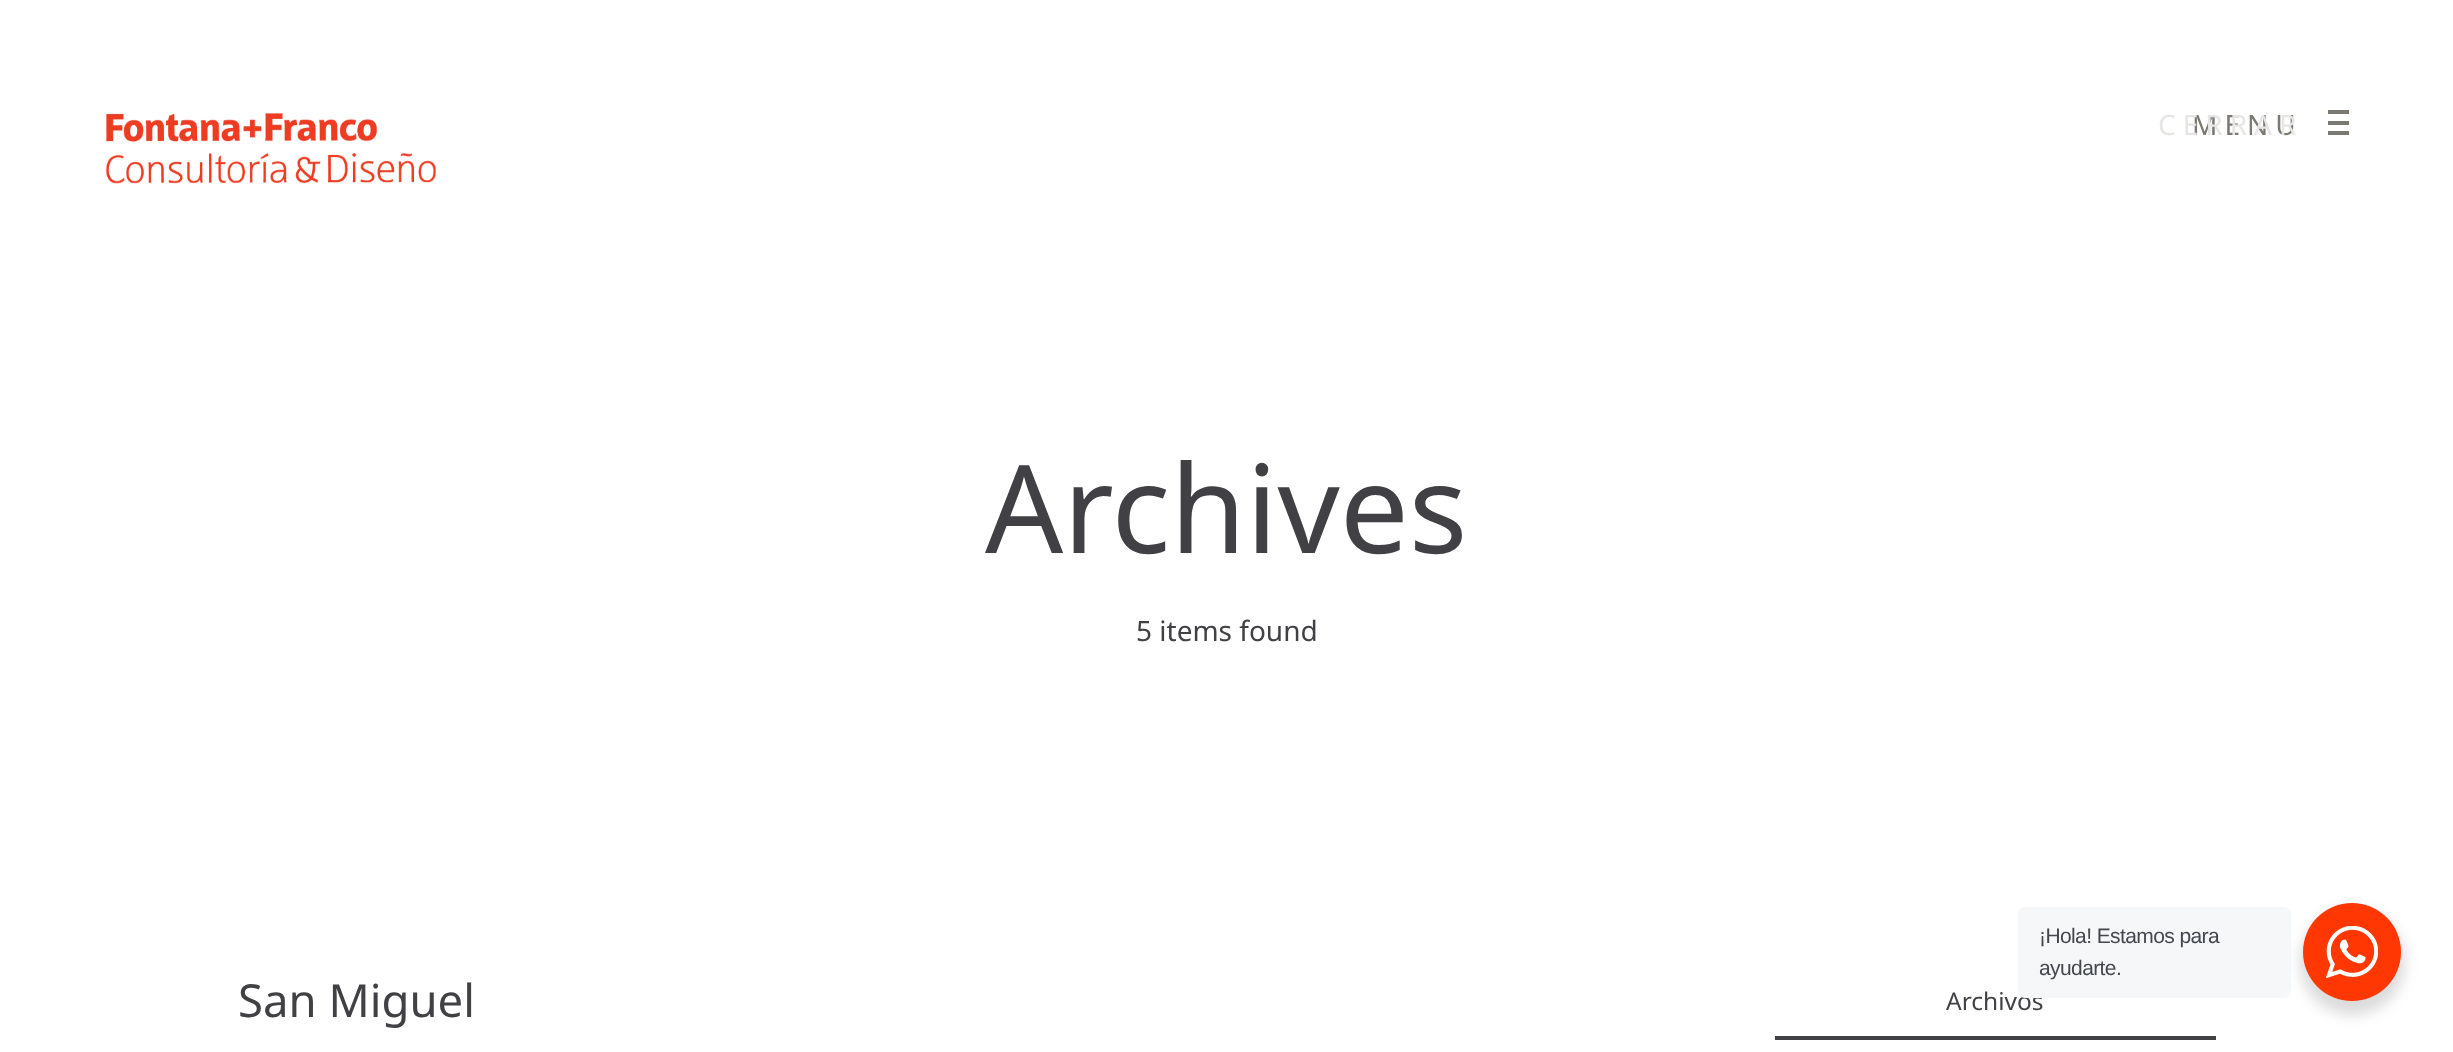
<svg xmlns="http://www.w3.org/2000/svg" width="2453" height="1052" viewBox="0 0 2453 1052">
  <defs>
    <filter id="blur1" x="-50%" y="-200%" width="200%" height="500%"><feGaussianBlur stdDeviation="7"/></filter>
  </defs>
  <rect width="100%" height="100%" fill="#ffffff"/>
  <image x="105" y="113" width="331" height="71" href="img1.png"/>
  <text x="2192" y="135" font-family="Noto Sans" font-size="28" letter-spacing="7" fill="#7c7972">MENU</text>
  <text x="2158" y="135" font-family="Noto Sans" font-size="28" letter-spacing="7" fill="#e7e6e5">CERRAR</text>
  <rect x="2328" y="110" width="21" height="4" fill="#7c7972"/>
  <rect x="2328" y="121" width="21" height="4" fill="#7c7972"/>
  <rect x="2328" y="131" width="21" height="4" fill="#7c7972"/>
  <text x="985" y="553" font-family="Noto Sans" font-size="122.5" fill="#414145">Archives</text>
  <text x="1136" y="641" font-family="Noto Sans" font-size="28" fill="#414145">5 items found</text>
  <text x="238" y="1017" font-family="Noto Sans" font-size="45.5" fill="#414145">San Miguel</text>
  <rect x="1775" y="1036" width="441" height="4" fill="#414145"/>
  <text x="1946" y="1010" font-family="Noto Sans" font-size="24.5" fill="#414145">Archivos</text>
  <rect x="2300" y="910" width="105" height="105" rx="52.5" fill="#000000" fill-opacity="0.14" filter="url(#blur1)"/>
  <rect x="2018" y="907" width="273" height="91" rx="7" fill="#f5f7f9"/>
  <text x="2039" y="943" font-family="Liberation Sans" font-size="21" letter-spacing="-0.6" fill="#43474e">¡Hola! Estamos para</text>
  <text x="2039" y="975" font-family="Liberation Sans" font-size="21" letter-spacing="-0.6" fill="#43474e">ayudarte.</text>
  <circle cx="2352" cy="952" r="49" fill="#ff3803"/>
  <image x="2326" y="926" width="52" height="52" href="img2.png"/>
</svg>
